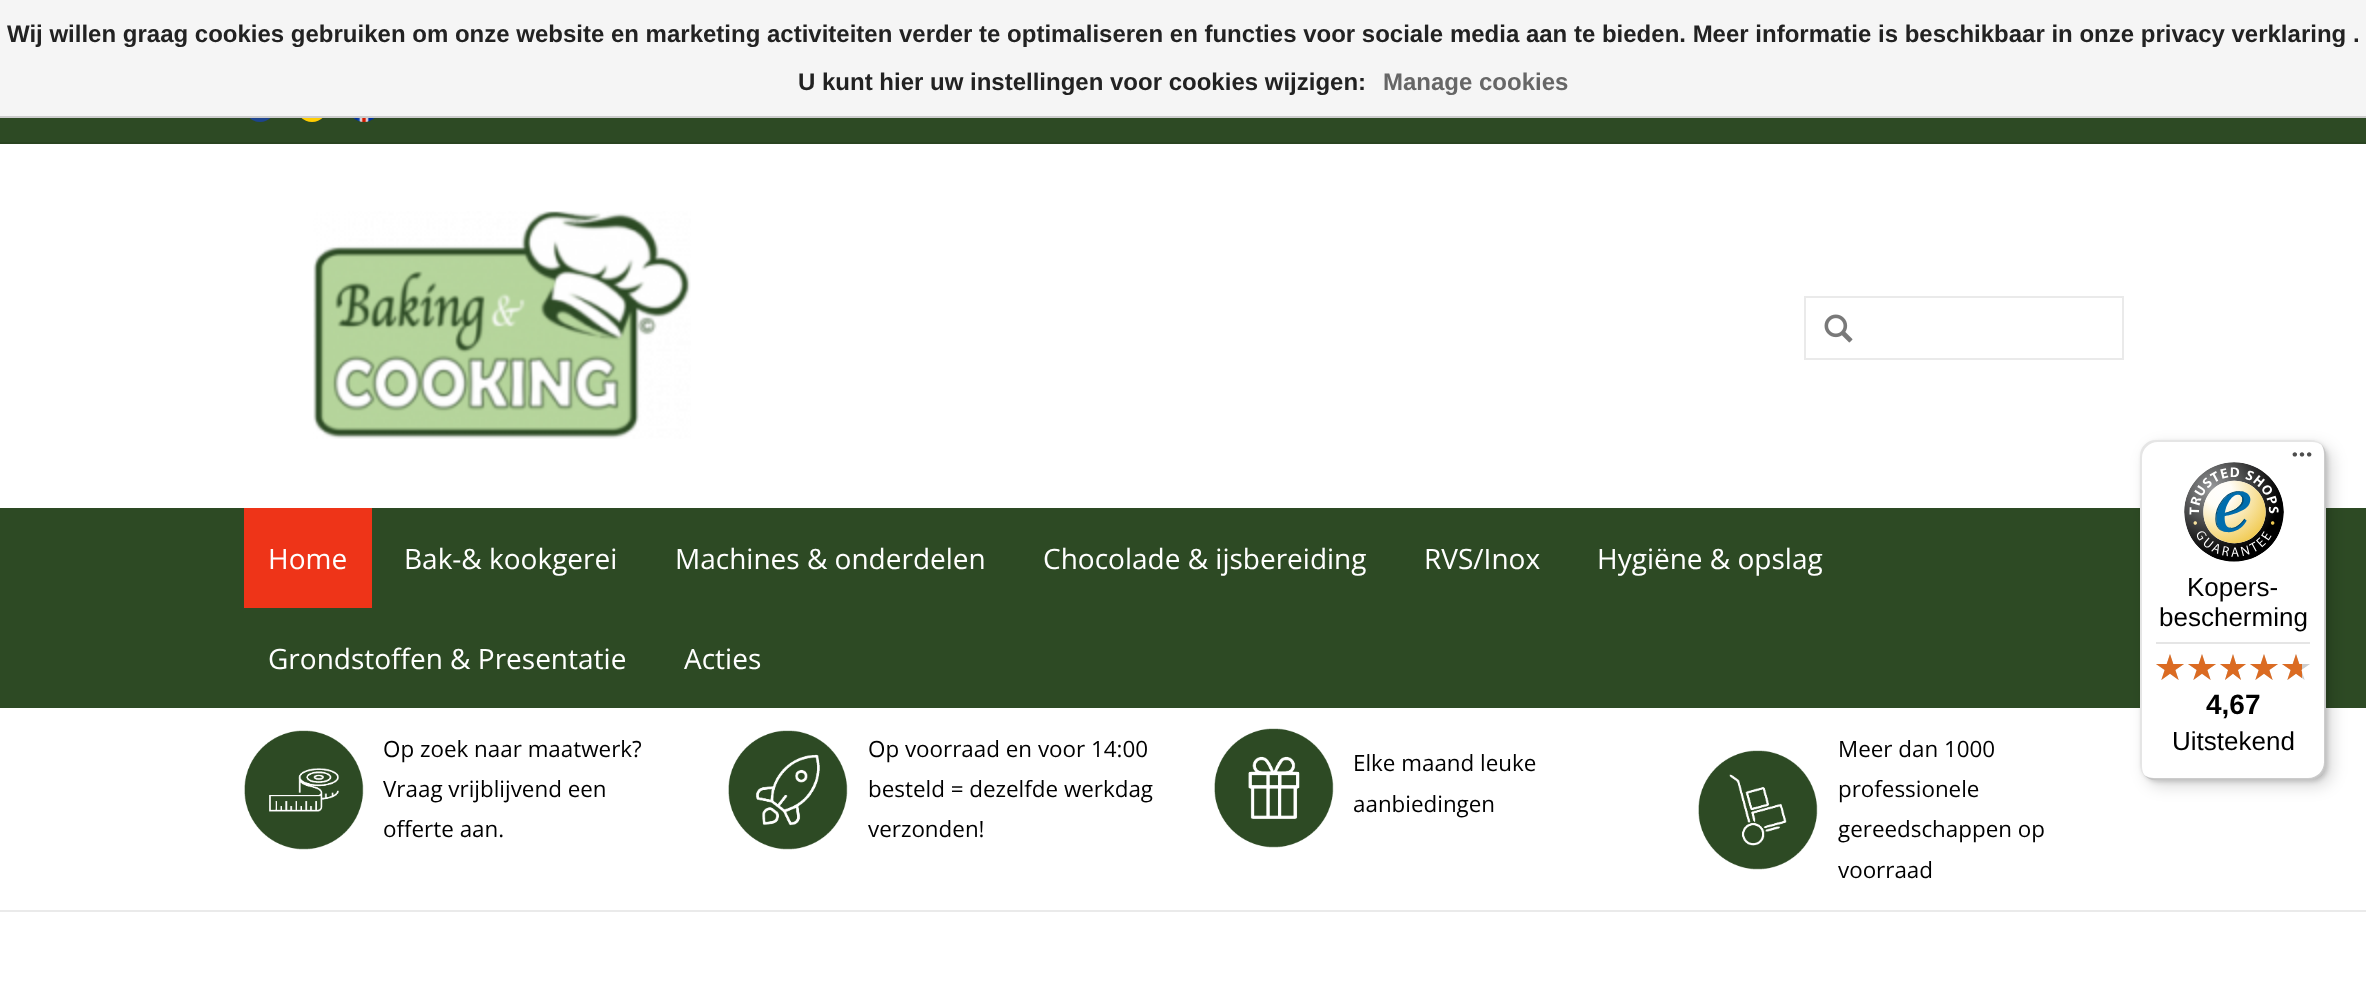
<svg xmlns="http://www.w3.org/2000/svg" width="2366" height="988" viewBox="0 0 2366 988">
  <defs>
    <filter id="blur1" x="-50%" y="-200%" width="200%" height="500%"><feGaussianBlur stdDeviation="8"/></filter>
    <filter id="blur2" x="-50%" y="-200%" width="200%" height="500%"><feGaussianBlur stdDeviation="2"/></filter>
  </defs>
  <rect width="100%" height="100%" fill="#ffffff"/>
  <rect x="0" y="0" width="2366" height="116" fill="#f5f5f5"/>
  <rect x="0" y="116" width="2366" height="2" fill="#cccccc"/>
  <text x="7" y="42" font-family="Liberation Sans" font-size="24" font-weight="bold" fill="#222222">Wij willen graag cookies gebruiken om onze website en marketing activiteiten verder te optimaliseren en functies voor sociale media aan te bieden. Meer informatie is beschikbaar in onze privacy verklaring .</text>
  <text x="798" y="90" font-family="Liberation Sans" font-size="24" font-weight="bold" fill="#222222">U kunt hier uw instellingen voor cookies wijzigen:</text>
  <text x="1383" y="90" font-family="Liberation Sans" font-size="24" font-weight="bold" fill="#666666">Manage cookies</text>
  <rect x="0" y="910" width="2366" height="2" fill="#eaeaea"/>
  <rect x="0" y="118" width="2366" height="24" fill="#2d4a24"/>
  <rect x="0" y="142" width="2366" height="2" fill="#294421"/>
  <image x="249" y="118" width="22" height="4" href="img1.png"/>
  <image x="301" y="118" width="22" height="4" href="img2.png"/>
  <image x="353" y="118" width="22" height="4" href="img3.png"/>
  <image x="313" y="211" width="378" height="228" href="img4.png"/>
  <rect x="1805" y="297" width="318" height="62" fill="none" stroke="#eaeaea" stroke-width="2"/>
  <image x="1824" y="314" width="29" height="29" href="img5.png"/>
  <rect x="0" y="508" width="2366" height="200" fill="#2d4a24"/>
  <rect x="244" y="508" width="128" height="100" fill="#ee3418"/>
  <text x="268" y="569" font-family="Open Sans" font-size="28" fill="#ffffff">Home</text>
  <text x="404" y="569" font-family="Open Sans" font-size="28" fill="#ffffff">Bak-&amp; kookgerei</text>
  <text x="675" y="569" font-family="Open Sans" font-size="28" fill="#ffffff">Machines &amp; onderdelen</text>
  <text x="1043" y="569" font-family="Open Sans" font-size="28" fill="#ffffff">Chocolade &amp; ijsbereiding</text>
  <text x="1424" y="569" font-family="Open Sans" font-size="28" fill="#ffffff">RVS/Inox</text>
  <text x="1597" y="569" font-family="Open Sans" font-size="28" fill="#ffffff">Hygiëne &amp; opslag</text>
  <text x="268" y="669" font-family="Open Sans" font-size="28" fill="#ffffff">Grondstoffen &amp; Presentatie</text>
  <text x="684" y="669" font-family="Open Sans" font-size="28" fill="#ffffff">Acties</text>
  <image x="244" y="730" width="120" height="120" href="img6.png"/>
  <text x="383" y="757" font-family="Open Sans" font-size="22.4" fill="#000000">Op zoek naar maatwerk?</text>
  <text x="383" y="797" font-family="Open Sans" font-size="22.4" fill="#000000">Vraag vrijblijvend een</text>
  <text x="383" y="837" font-family="Open Sans" font-size="22.4" fill="#000000">offerte aan.</text>
  <image x="728" y="730" width="120" height="120" href="img7.png"/>
  <text x="868" y="757" font-family="Open Sans" font-size="22.4" fill="#000000">Op voorraad en voor 14:00</text>
  <text x="868" y="797" font-family="Open Sans" font-size="22.4" fill="#000000">besteld = dezelfde werkdag</text>
  <text x="868" y="837" font-family="Open Sans" font-size="22.4" fill="#000000">verzonden!</text>
  <image x="1214" y="728" width="120" height="120" href="img8.png"/>
  <text x="1353" y="771" font-family="Open Sans" font-size="22.4" fill="#000000">Elke maand leuke</text>
  <text x="1353" y="812" font-family="Open Sans" font-size="22.4" fill="#000000">aanbiedingen</text>
  <image x="1698" y="750" width="120" height="120" href="img9.png"/>
  <text x="1838" y="757" font-family="Open Sans" font-size="22.4" fill="#000000">Meer dan 1000</text>
  <text x="1838" y="797" font-family="Open Sans" font-size="22.4" fill="#000000">professionele</text>
  <text x="1838" y="837" font-family="Open Sans" font-size="22.4" fill="#000000">gereedschappen op</text>
  <text x="1838" y="878" font-family="Open Sans" font-size="22.4" fill="#000000">voorraad</text>
  <rect x="2146" y="446" width="186" height="340" rx="16" fill="#000000" fill-opacity="0.15" filter="url(#blur1)"/>
  <rect x="2142" y="442" width="186" height="340" rx="16" fill="#000000" fill-opacity="0.15" filter="url(#blur2)"/>
  <rect x="2140" y="440" width="186" height="340" rx="16" fill="#ffffff"/>
  <path d="M2158 442H2312C2316 442 2319 443 2322 445C2319 442 2315 440 2310 440H2156C2147 440 2140 447 2140 456V764C2140 769 2142 773 2145 776C2143 773 2142 770 2142 766V458C2142 449 2149 442 2158 442Z" fill="#000000" fill-opacity="0.1"/>
  <path d="M2144 775C2147 778 2151 780 2156 780H2310C2319 780 2326 773 2326 764V456C2326 451 2324 447 2321 444C2323 447 2324 450 2324 454V762C2324 771 2317 778 2308 778H2154C2150 778 2147 777 2144 775Z" fill="#000000" fill-opacity="0.2"/>
  <path d="M2145 775C2148 778 2152 780 2156 780H2310C2319 780 2326 773 2326 764V456C2326 452 2324 448 2321 445C2324 448 2325 451 2325 455V763C2325 772 2318 779 2309 779H2155C2151 779 2148 778 2145 775Z" fill="#323232" fill-opacity="0.2"/>
  <path d="M2145 775C2148 778 2152 780 2156 780H2310C2319 780 2326 773 2326 764V456C2326 452 2324 448 2321 445C2324 448 2325 451 2325 455V763C2325 772 2318 779 2309 779H2155C2151 779 2148 778 2145 775Z" fill="#ffffff" fill-opacity="0.3"/>
  <image x="2292" y="452" width="20" height="5" href="img10.png"/>
  <image x="2184" y="462" width="100" height="100" href="img11.png"/>
  <text x="2187" y="596" font-family="Liberation Sans" font-size="26" fill="#000000">Kopers-</text>
  <text x="2159" y="626" font-family="Liberation Sans" font-size="26" fill="#000000">bescherming</text>
  <rect x="2156" y="642" width="154" height="2" fill="#e5e5e5"/>
  <image x="2156" y="654" width="28" height="26" href="img12.png"/>
  <image x="2188" y="654" width="28" height="26" href="img12.png"/>
  <image x="2220" y="654" width="26" height="26" href="img13.png"/>
  <image x="2250" y="654" width="28" height="26" href="img12.png"/>
  <image x="2282" y="654" width="28" height="26" href="img12.png"/>
  <image x="2156" y="654" width="28" height="26" href="img14.png"/>
  <image x="2188" y="654" width="28" height="26" href="img14.png"/>
  <image x="2220" y="654" width="26" height="26" href="img15.png"/>
  <image x="2250" y="654" width="28" height="26" href="img14.png"/>
  <image x="2282" y="654" width="20" height="26" href="img16.png"/>
  <text x="2206" y="714" font-family="Liberation Sans" font-size="28" font-weight="bold" fill="#000000">4,67</text>
  <text x="2172" y="750" font-family="Liberation Sans" font-size="26" fill="#000000">Uitstekend</text>
</svg>
